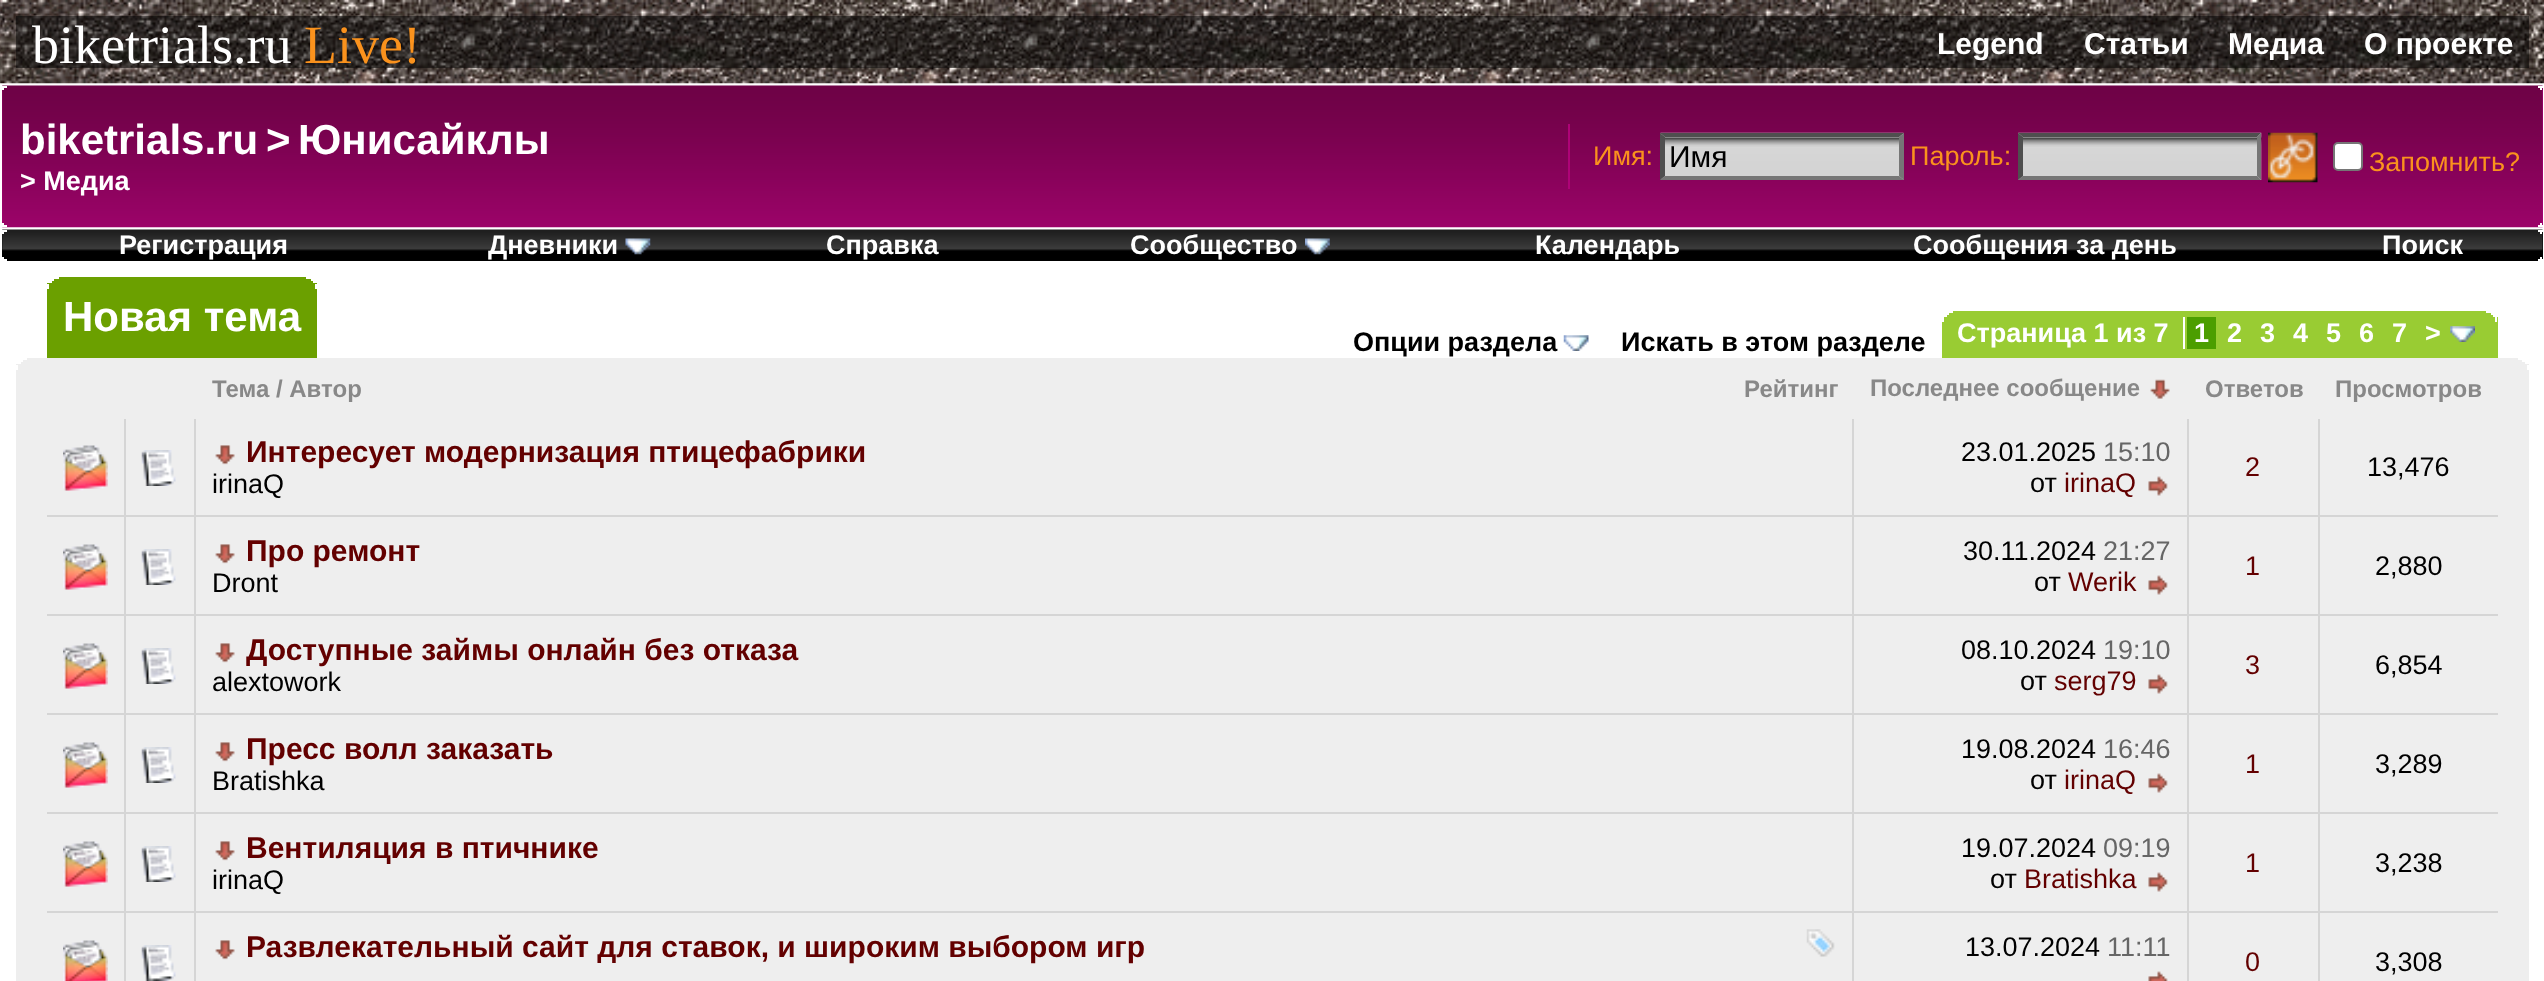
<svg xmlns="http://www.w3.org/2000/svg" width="2544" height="981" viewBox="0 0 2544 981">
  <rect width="100%" height="100%" fill="#ffffff"/>
  <image x="0" y="0" width="2544" height="84" href="img1.png"/>
  <rect x="16" y="16" width="2513" height="52" fill="#000000" fill-opacity="0.5"/>
  <text x="32" y="63" font-family="Liberation Serif" font-size="54" fill="#ffffff">biketrials.ru</text>
  <text x="304" y="63" font-family="Liberation Serif" font-size="54" fill="#fa921d">Live!</text>
  <text x="1937" y="54" font-family="Liberation Sans" font-size="30" font-weight="bold" fill="#ffffff">Legend</text>
  <text x="2084" y="54" font-family="Liberation Sans" font-size="30" font-weight="bold" fill="#ffffff">Статьи</text>
  <text x="2228" y="54" font-family="Liberation Sans" font-size="30" font-weight="bold" fill="#ffffff">Медиа</text>
  <text x="2364" y="54" font-family="Liberation Sans" font-size="30" font-weight="bold" fill="#ffffff">О проекте</text>
  <rect x="2" y="88" width="2541" height="137" fill="#ae0377"/>
  <image x="2" y="85" width="2541" height="143" href="img2.png"/>
  <rect x="2538" y="86" width="5" height="2" fill="#ffffff"/>
  <rect x="2" y="86" width="5" height="2" fill="#ffffff"/>
  <rect x="2540" y="88" width="2" height="2" fill="#ffffff"/>
  <rect x="2" y="88" width="2" height="2" fill="#ffffff"/>
  <text x="20" y="154" font-family="Liberation Sans" font-size="42" font-weight="bold" fill="#ffffff">biketrials.ru</text>
  <text x="266" y="154" font-family="Liberation Sans" font-size="42" font-weight="bold" fill="#ffffff">&gt;</text>
  <text x="298" y="154" font-family="Liberation Sans" font-size="42" font-weight="bold" fill="#ffffff">Юнисайклы</text>
  <text x="20" y="190" font-family="Liberation Sans" font-size="27" font-weight="bold" fill="#ffffff">&gt; Медиа</text>
  <rect x="1568" y="124" width="2" height="65" fill="#ae0377"/>
  <text x="1593" y="165" font-family="Liberation Sans" font-size="27" fill="#fa921d">Имя:</text>
  <image x="1660" y="132" width="244" height="48" href="img3.png"/>
  <path d="M1660 133H1904L1899 137H1665Z" fill="#4f4f4f"/>
  <path d="M1904 133V180L1899 176V137Z" fill="#767676"/>
  <path d="M1904 180H1660L1665 176H1899Z" fill="#767676"/>
  <path d="M1660 180V133L1665 137V176Z" fill="#4f4f4f"/>
  <text x="1669" y="167" font-family="Liberation Sans" font-size="30" fill="#000000">Имя</text>
  <text x="1910" y="165" font-family="Liberation Sans" font-size="27" fill="#fa921d">Пароль:</text>
  <image x="2018" y="132" width="244" height="48" href="img4.png"/>
  <path d="M2018 133H2261L2257 137H2023Z" fill="#4f4f4f"/>
  <path d="M2261 133V180L2257 176V137Z" fill="#767676"/>
  <path d="M2261 180H2018L2023 176H2257Z" fill="#767676"/>
  <path d="M2018 180V133L2023 137V176Z" fill="#4f4f4f"/>
  <image x="2268" y="132" width="50" height="51" href="img5.png"/>
  <rect x="2334" y="143" width="28" height="27" rx="4" fill="#ffffff" stroke="#767676" stroke-width="2"/>
  <text x="2369" y="171" font-family="Liberation Sans" font-size="27" fill="#fa921d">Запомнить?</text>
  <rect x="2540" y="223" width="2" height="2" fill="#ffffff"/>
  <rect x="2" y="223" width="2" height="2" fill="#ffffff"/>
  <rect x="2538" y="225" width="5" height="2" fill="#ffffff"/>
  <rect x="2" y="225" width="5" height="2" fill="#ffffff"/>
  <rect x="2" y="232" width="2541" height="29" fill="#000000"/>
  <image x="2" y="229" width="2541" height="22" href="img6.png"/>
  <rect x="2538" y="230" width="5" height="2" fill="#ffffff"/>
  <rect x="2" y="230" width="5" height="2" fill="#ffffff"/>
  <rect x="2540" y="232" width="2" height="2" fill="#ffffff"/>
  <rect x="2" y="232" width="2" height="2" fill="#ffffff"/>
  <text x="119" y="254" font-family="Liberation Sans" font-size="27" font-weight="bold" fill="#ffffff">Регистрация</text>
  <text x="488" y="254" font-family="Liberation Sans" font-size="27" font-weight="bold" fill="#ffffff">Дневники</text>
  <image x="625" y="238" width="26" height="17" href="img7.png"/>
  <text x="826" y="254" font-family="Liberation Sans" font-size="27" font-weight="bold" fill="#ffffff">Справка</text>
  <text x="1130" y="254" font-family="Liberation Sans" font-size="27" font-weight="bold" fill="#ffffff">Сообщество</text>
  <image x="1305" y="238" width="25" height="17" href="img8.png"/>
  <text x="1535" y="254" font-family="Liberation Sans" font-size="27" font-weight="bold" fill="#ffffff">Календарь</text>
  <text x="1913" y="254" font-family="Liberation Sans" font-size="27" font-weight="bold" fill="#ffffff">Сообщения за день</text>
  <text x="2382" y="254" font-family="Liberation Sans" font-size="27" font-weight="bold" fill="#ffffff">Поиск</text>
  <rect x="2540" y="257" width="2" height="2" fill="#ffffff"/>
  <rect x="2" y="257" width="2" height="2" fill="#ffffff"/>
  <rect x="2538" y="259" width="5" height="2" fill="#ffffff"/>
  <rect x="2" y="259" width="5" height="2" fill="#ffffff"/>
  <rect x="47" y="277" width="270" height="81" fill="#6ba000"/>
  <rect x="306" y="277" width="11" height="2" fill="#ffffff"/>
  <rect x="47" y="277" width="12" height="2" fill="#ffffff"/>
  <rect x="311" y="279" width="7" height="2" fill="#ffffff"/>
  <rect x="47" y="279" width="7" height="2" fill="#ffffff"/>
  <rect x="313" y="281" width="5" height="2" fill="#ffffff"/>
  <rect x="47" y="281" width="5" height="2" fill="#ffffff"/>
  <rect x="315" y="284" width="2" height="5" fill="#ffffff"/>
  <rect x="47" y="284" width="2" height="5" fill="#ffffff"/>
  <text x="63" y="331" font-family="Liberation Sans" font-size="42" font-weight="bold" fill="#ffffff">Новая тема</text>
  <text x="1353" y="351" font-family="Liberation Sans" font-size="27" font-weight="bold" fill="#000000">Опции раздела</text>
  <image x="1563" y="335" width="26" height="16" href="img9.png"/>
  <text x="1621" y="351" font-family="Liberation Sans" font-size="27" font-weight="bold" fill="#000000">Искать в этом разделе</text>
  <rect x="1942" y="311" width="556" height="47" fill="#99cc33"/>
  <rect x="2486" y="311" width="12" height="2" fill="#ffffff"/>
  <rect x="1942" y="311" width="11" height="2" fill="#ffffff"/>
  <rect x="2491" y="313" width="7" height="2" fill="#ffffff"/>
  <rect x="1942" y="313" width="7" height="2" fill="#ffffff"/>
  <rect x="2493" y="315" width="5" height="2" fill="#ffffff"/>
  <rect x="1942" y="315" width="5" height="2" fill="#ffffff"/>
  <rect x="2495" y="317" width="2" height="5" fill="#ffffff"/>
  <rect x="1942" y="317" width="2" height="5" fill="#ffffff"/>
  <rect x="2183" y="317" width="2" height="32" fill="#ffffff"/>
  <text x="1957" y="342" font-family="Liberation Sans" font-size="27" font-weight="bold" fill="#ffffff">Страница 1 из 7</text>
  <rect x="2187" y="317" width="29" height="32" fill="#4c9e00"/>
  <text x="2194" y="342" font-family="Liberation Sans" font-size="27" font-weight="bold" fill="#ffffff">1</text>
  <text x="2227" y="342" font-family="Liberation Sans" font-size="27" font-weight="bold" fill="#ffffff">2</text>
  <text x="2260" y="342" font-family="Liberation Sans" font-size="27" font-weight="bold" fill="#ffffff">3</text>
  <text x="2293" y="342" font-family="Liberation Sans" font-size="27" font-weight="bold" fill="#ffffff">4</text>
  <text x="2326" y="342" font-family="Liberation Sans" font-size="27" font-weight="bold" fill="#ffffff">5</text>
  <text x="2359" y="342" font-family="Liberation Sans" font-size="27" font-weight="bold" fill="#ffffff">6</text>
  <text x="2392" y="342" font-family="Liberation Sans" font-size="27" font-weight="bold" fill="#ffffff">7</text>
  <text x="2425" y="342" font-family="Liberation Sans" font-size="27" font-weight="bold" fill="#ffffff">&gt;</text>
  <image x="2450" y="326" width="25" height="16" href="img10.png"/>
  <rect x="16" y="358" width="2513" height="16" fill="#eeeeee"/>
  <rect x="2518" y="358" width="11" height="2" fill="#ffffff"/>
  <rect x="16" y="358" width="11" height="2" fill="#ffffff"/>
  <rect x="2522" y="360" width="7" height="2" fill="#ffffff"/>
  <rect x="16" y="360" width="7" height="2" fill="#ffffff"/>
  <rect x="2525" y="362" width="5" height="2" fill="#ffffff"/>
  <rect x="16" y="362" width="5" height="2" fill="#ffffff"/>
  <rect x="2527" y="365" width="2" height="5" fill="#ffffff"/>
  <rect x="16" y="365" width="2" height="5" fill="#ffffff"/>
  <rect x="16" y="374" width="2513" height="45" fill="#eeeeee"/>
  <text x="212" y="397" font-family="Liberation Sans" font-size="24" font-weight="bold" fill="#888888">Тема / Автор</text>
  <text x="1744" y="397" font-family="Liberation Sans" font-size="24" font-weight="bold" fill="#888888">Рейтинг</text>
  <text x="1870" y="396" font-family="Liberation Sans" font-size="24" font-weight="bold" fill="#888888">Последнее сообщение</text>
  <image x="2150" y="379" width="20" height="20" href="img11.png"/>
  <text x="2205" y="397" font-family="Liberation Sans" font-size="24" font-weight="bold" fill="#888888">Ответов</text>
  <text x="2335" y="397" font-family="Liberation Sans" font-size="24" font-weight="bold" fill="#888888">Просмотров</text>
  <rect x="16" y="419" width="108" height="99" fill="#eeeeee"/>
  <rect x="124" y="419" width="2" height="562" fill="#d5d5d5"/>
  <rect x="47" y="515" width="79" height="2" fill="#d5d5d5"/>
  <image x="63" y="445" width="45" height="46" href="img12.png"/>
  <rect x="126" y="419" width="68" height="562" fill="#eeeeee"/>
  <rect x="194" y="419" width="2" height="562" fill="#d5d5d5"/>
  <rect x="126" y="515" width="70" height="2" fill="#d5d5d5"/>
  <image x="141" y="450" width="35" height="36" href="img13.png"/>
  <rect x="196" y="419" width="1656" height="562" fill="#eeeeee"/>
  <rect x="1852" y="419" width="2" height="562" fill="#d5d5d5"/>
  <rect x="196" y="515" width="1658" height="2" fill="#d5d5d5"/>
  <image x="215" y="445" width="20" height="20" href="img14.png"/>
  <text x="246" y="462" font-family="Liberation Sans" font-size="30" font-weight="bold" fill="#630000">Интересует модернизация птицефабрики</text>
  <text x="212" y="493" font-family="Liberation Sans" font-size="27" fill="#000000">irinaQ</text>
  <rect x="1854" y="419" width="333" height="562" fill="#eeeeee"/>
  <rect x="2187" y="419" width="2" height="562" fill="#d5d5d5"/>
  <rect x="1854" y="515" width="335" height="2" fill="#d5d5d5"/>
  <text x="1961" y="461" font-family="Liberation Sans" font-size="27" fill="#000000">23.01.2025</text>
  <text x="2103" y="461" font-family="Liberation Sans" font-size="27" fill="#666666">15:10</text>
  <text x="2030" y="492" font-family="Liberation Sans" font-size="27" fill="#000000">от</text>
  <text x="2064" y="492" font-family="Liberation Sans" font-size="27" fill="#630000">irinaQ</text>
  <image x="2148" y="476" width="20" height="20" href="img15.png"/>
  <rect x="2189" y="419" width="129" height="562" fill="#eeeeee"/>
  <rect x="2318" y="419" width="2" height="562" fill="#d5d5d5"/>
  <rect x="2189" y="515" width="131" height="2" fill="#d5d5d5"/>
  <text x="2245" y="476" font-family="Liberation Sans" font-size="27" fill="#630000">2</text>
  <rect x="2320" y="419" width="209" height="99" fill="#eeeeee"/>
  <rect x="2320" y="515" width="178" height="2" fill="#d5d5d5"/>
  <text x="2367" y="476" font-family="Liberation Sans" font-size="27" fill="#000000">13,476</text>
  <rect x="16" y="518" width="108" height="99" fill="#eeeeee"/>
  <image x="215" y="544" width="20" height="20" href="img14.png"/>
  <text x="246" y="561" font-family="Liberation Sans" font-size="30" font-weight="bold" fill="#630000">Про ремонт</text>
  <text x="212" y="592" font-family="Liberation Sans" font-size="27" fill="#000000">Dront</text>
  <text x="1963" y="560" font-family="Liberation Sans" font-size="27" fill="#000000">30.11.2024</text>
  <text x="2103" y="560" font-family="Liberation Sans" font-size="27" fill="#666666">21:27</text>
  <text x="2034" y="591" font-family="Liberation Sans" font-size="27" fill="#000000">от</text>
  <text x="2068" y="591" font-family="Liberation Sans" font-size="27" fill="#630000">Werik</text>
  <image x="2148" y="575" width="20" height="20" href="img16.png"/>
  <rect x="47" y="614" width="2273" height="2" fill="#d5d5d5"/>
  <image x="63" y="544" width="45" height="46" href="img17.png"/>
  <image x="141" y="549" width="35" height="36" href="img18.png"/>
  <text x="2245" y="575" font-family="Liberation Sans" font-size="27" fill="#630000">1</text>
  <rect x="2320" y="518" width="209" height="99" fill="#eeeeee"/>
  <rect x="2320" y="614" width="178" height="2" fill="#d5d5d5"/>
  <text x="2375" y="575" font-family="Liberation Sans" font-size="27" fill="#000000">2,880</text>
  <rect x="16" y="617" width="108" height="99" fill="#eeeeee"/>
  <image x="215" y="643" width="20" height="20" href="img14.png"/>
  <text x="246" y="660" font-family="Liberation Sans" font-size="30" font-weight="bold" fill="#630000">Доступные займы онлайн без отказа</text>
  <text x="212" y="691" font-family="Liberation Sans" font-size="27" fill="#000000">alextowork</text>
  <text x="1961" y="659" font-family="Liberation Sans" font-size="27" fill="#000000">08.10.2024</text>
  <text x="2103" y="659" font-family="Liberation Sans" font-size="27" fill="#666666">19:10</text>
  <text x="2020" y="690" font-family="Liberation Sans" font-size="27" fill="#000000">от</text>
  <text x="2054" y="690" font-family="Liberation Sans" font-size="27" fill="#630000">serg79</text>
  <image x="2148" y="674" width="20" height="20" href="img15.png"/>
  <rect x="47" y="713" width="2273" height="2" fill="#d5d5d5"/>
  <image x="63" y="643" width="45" height="46" href="img12.png"/>
  <image x="141" y="648" width="35" height="36" href="img13.png"/>
  <text x="2245" y="674" font-family="Liberation Sans" font-size="27" fill="#630000">3</text>
  <rect x="2320" y="617" width="209" height="99" fill="#eeeeee"/>
  <rect x="2320" y="713" width="178" height="2" fill="#d5d5d5"/>
  <text x="2375" y="674" font-family="Liberation Sans" font-size="27" fill="#000000">6,854</text>
  <rect x="16" y="716" width="108" height="99" fill="#eeeeee"/>
  <image x="215" y="742" width="20" height="20" href="img14.png"/>
  <text x="246" y="759" font-family="Liberation Sans" font-size="30" font-weight="bold" fill="#630000">Пресс волл заказать</text>
  <text x="212" y="790" font-family="Liberation Sans" font-size="27" fill="#000000">Bratishka</text>
  <text x="1961" y="758" font-family="Liberation Sans" font-size="27" fill="#000000">19.08.2024</text>
  <text x="2103" y="758" font-family="Liberation Sans" font-size="27" fill="#666666">16:46</text>
  <text x="2030" y="789" font-family="Liberation Sans" font-size="27" fill="#000000">от</text>
  <text x="2064" y="789" font-family="Liberation Sans" font-size="27" fill="#630000">irinaQ</text>
  <image x="2148" y="773" width="20" height="20" href="img15.png"/>
  <rect x="47" y="812" width="2273" height="2" fill="#d5d5d5"/>
  <image x="63" y="742" width="45" height="46" href="img12.png"/>
  <image x="141" y="747" width="35" height="36" href="img13.png"/>
  <text x="2245" y="773" font-family="Liberation Sans" font-size="27" fill="#630000">1</text>
  <rect x="2320" y="716" width="209" height="99" fill="#eeeeee"/>
  <rect x="2320" y="812" width="178" height="2" fill="#d5d5d5"/>
  <text x="2375" y="773" font-family="Liberation Sans" font-size="27" fill="#000000">3,289</text>
  <rect x="16" y="815" width="108" height="99" fill="#eeeeee"/>
  <image x="215" y="841" width="20" height="20" href="img14.png"/>
  <text x="246" y="858" font-family="Liberation Sans" font-size="30" font-weight="bold" fill="#630000">Вентиляция в птичнике</text>
  <text x="212" y="889" font-family="Liberation Sans" font-size="27" fill="#000000">irinaQ</text>
  <text x="1961" y="857" font-family="Liberation Sans" font-size="27" fill="#000000">19.07.2024</text>
  <text x="2103" y="857" font-family="Liberation Sans" font-size="27" fill="#666666">09:19</text>
  <text x="1990" y="888" font-family="Liberation Sans" font-size="27" fill="#000000">от</text>
  <text x="2024" y="888" font-family="Liberation Sans" font-size="27" fill="#630000">Bratishka</text>
  <image x="2148" y="872" width="20" height="20" href="img15.png"/>
  <rect x="47" y="911" width="2273" height="2" fill="#d5d5d5"/>
  <image x="63" y="841" width="45" height="46" href="img12.png"/>
  <image x="141" y="846" width="35" height="36" href="img13.png"/>
  <text x="2245" y="872" font-family="Liberation Sans" font-size="27" fill="#630000">1</text>
  <rect x="2320" y="815" width="209" height="99" fill="#eeeeee"/>
  <rect x="2320" y="911" width="178" height="2" fill="#d5d5d5"/>
  <text x="2375" y="872" font-family="Liberation Sans" font-size="27" fill="#000000">3,238</text>
  <rect x="16" y="914" width="108" height="67" fill="#eeeeee"/>
  <image x="215" y="940" width="20" height="20" href="img14.png"/>
  <text x="246" y="957" font-family="Liberation Sans" font-size="30" font-weight="bold" fill="#630000">Развлекательный сайт для ставок, и широким выбором игр</text>
  <image x="1806" y="929" width="29" height="28" href="img19.png"/>
  <text x="1965" y="956" font-family="Liberation Sans" font-size="27" fill="#000000">13.07.2024</text>
  <text x="2107" y="956" font-family="Liberation Sans" font-size="27" fill="#666666">11:11</text>
  <image x="2148" y="971" width="20" height="10" href="img20.png"/>
  <image x="63" y="940" width="45" height="41" href="img21.png"/>
  <image x="141" y="945" width="35" height="36" href="img13.png"/>
  <text x="2245" y="971" font-family="Liberation Sans" font-size="27" fill="#630000">0</text>
  <rect x="2320" y="914" width="209" height="67" fill="#eeeeee"/>
  <text x="2375" y="971" font-family="Liberation Sans" font-size="27" fill="#000000">3,308</text>
</svg>
